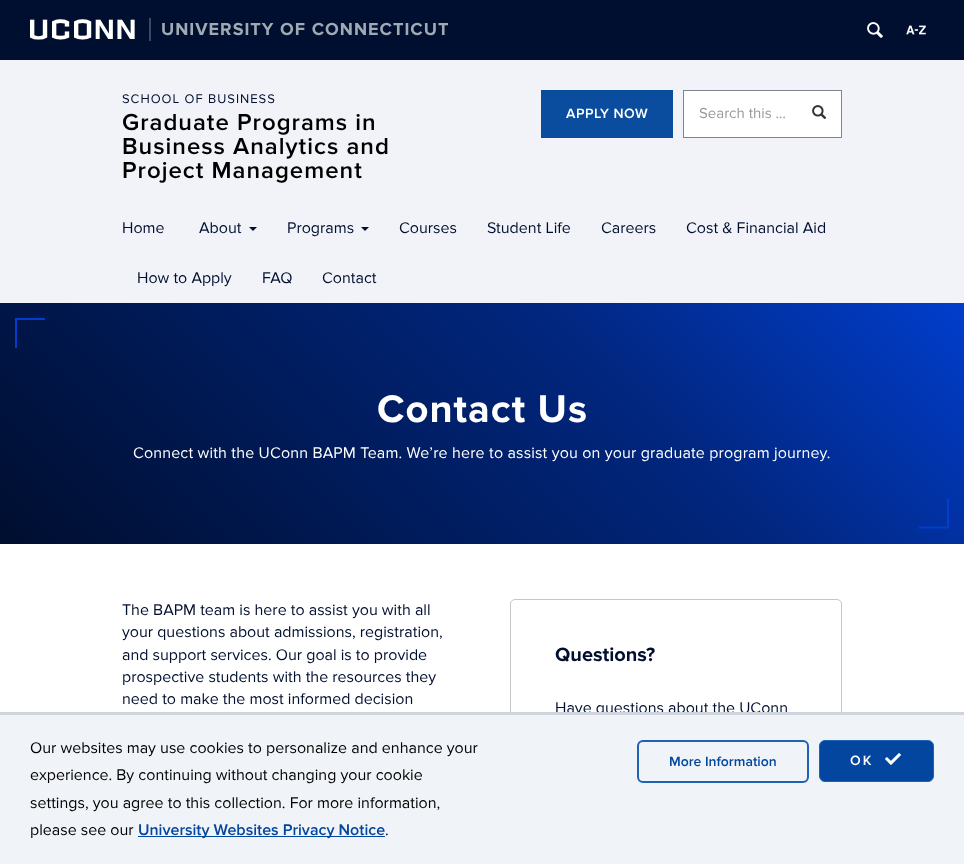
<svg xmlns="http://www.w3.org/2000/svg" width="964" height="864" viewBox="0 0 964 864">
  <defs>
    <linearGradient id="g1" gradientUnits="userSpaceOnUse" x1="181" y1="725" x2="783" y2="122"><stop offset="0" stop-color="#000e2f"/><stop offset="0.64" stop-color="#01267e"/><stop offset="1" stop-color="#013ecd"/></linearGradient>
  </defs>
  <rect width="100%" height="100%" fill="#ffffff"/>
  <rect x="0" y="0" width="964" height="60" fill="#000e2f"/>
  <text x="30" y="39" font-family="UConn" font-size="32" letter-spacing="3" fill="#ffffff">UCONN</text>
  <text x="161" y="35" font-family="Proxima Nova" font-size="18" font-weight="bold" letter-spacing="1" fill="#9faab2">UNIVERSITY OF CONNECTICUT</text>
  <rect x="149" y="18" width="2" height="23" fill="#3f4760"/>
  <image x="867" y="22" width="16" height="16" href="img1.png"/>
  <image x="906" y="25" width="20" height="10" href="img2.png"/>
  <rect x="0" y="60" width="964" height="243" fill="#f1f3f8"/>
  <text x="122" y="103" font-family="Proxima Nova" font-size="13" letter-spacing="1" fill="#000e2f">SCHOOL OF BUSINESS</text>
  <text x="122" y="130" font-family="Proxima Nova" font-size="24" font-weight="600" letter-spacing="1" fill="#000000">Graduate Programs in</text>
  <text x="122" y="154" font-family="Proxima Nova" font-size="24" font-weight="600" letter-spacing="1" fill="#000000">Business Analytics and</text>
  <text x="122" y="178" font-family="Proxima Nova" font-size="24" font-weight="600" letter-spacing="1" fill="#000000">Project Management</text>
  <rect x="541" y="90" width="132" height="48" fill="#0a4d9e"/>
  <text x="566" y="118" font-family="Proxima Nova" font-size="14" font-weight="600" letter-spacing="0.5" fill="#ffffff">APPLY NOW</text>
  <rect x="683.5" y="90.5" width="158" height="47" fill="#ffffff" stroke="#7b868c"/>
  <text x="699" y="118" font-family="Proxima Nova" font-size="15" fill="#999999">Search this …</text>
  <image x="812" y="105" width="15" height="14" href="img3.png"/>
  <text x="122" y="233" font-family="Proxima Nova" font-size="16" fill="#000e2f">Home</text>
  <text x="199" y="233" font-family="Proxima Nova" font-size="16" fill="#000e2f">About</text>
  <path d="M249 227H257L253 231Z" fill="#000e2f"/>
  <text x="287" y="233" font-family="Proxima Nova" font-size="16" fill="#000e2f">Programs</text>
  <path d="M361 227H369L365 231Z" fill="#000e2f"/>
  <text x="399" y="233" font-family="Proxima Nova" font-size="16" fill="#000e2f">Courses</text>
  <text x="487" y="233" font-family="Proxima Nova" font-size="16" fill="#000e2f">Student Life</text>
  <text x="601" y="233" font-family="Proxima Nova" font-size="16" fill="#000e2f">Careers</text>
  <text x="686" y="233" font-family="Proxima Nova" font-size="16" fill="#000e2f">Cost &amp; Financial Aid</text>
  <text x="137" y="283" font-family="Proxima Nova" font-size="16" fill="#000e2f">How to Apply</text>
  <text x="262" y="283" font-family="Proxima Nova" font-size="16" fill="#000e2f">FAQ</text>
  <text x="322" y="283" font-family="Proxima Nova" font-size="16" fill="#000e2f">Contact</text>
  <rect x="0" y="303" width="964" height="241" fill="url(#g1)"/>
  <path d="M15 348V318H45V320H17V348Z" fill="#013ecd" fill-rule="evenodd"/>
  <text x="377" y="422" font-family="Proxima Nova" font-size="40" font-weight="bold" letter-spacing="1" fill="#ffffff">Contact Us</text>
  <text x="133" y="458" font-family="Proxima Nova" font-size="16" letter-spacing="0.15" fill="#ffffff">Connect with the UConn BAPM Team. We’re here to assist you on your graduate program journey.</text>
  <path d="M949 498.5V528.5H919V526.5H947V498.5Z" fill="#013ecd" fill-rule="evenodd"/>
  <text x="122" y="615" font-family="Proxima Nova" font-size="16" fill="#000e2f">The BAPM team is here to assist you with all</text>
  <text x="122" y="637" font-family="Proxima Nova" font-size="16" fill="#000e2f">your questions about admissions, registration,</text>
  <text x="122" y="660" font-family="Proxima Nova" font-size="16" fill="#000e2f">and support services. Our goal is to provide</text>
  <text x="122" y="682" font-family="Proxima Nova" font-size="16" fill="#000e2f">prospective students with the resources they</text>
  <text x="122" y="704" font-family="Proxima Nova" font-size="16" fill="#000e2f">need to make the most informed decision</text>
  <rect x="510.5" y="599.5" width="331" height="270" rx="4.5" fill="none" stroke="#c6c6c6"/>
  <text x="555" y="661" font-family="Proxima Nova" font-size="20" font-weight="bold" fill="#000e2f">Questions?</text>
  <text x="555" y="713" font-family="Proxima Nova" font-size="16" fill="#000e2f">Have questions about the UConn</text>
  <rect x="0" y="715" width="964" height="149" fill="#f0f3f7"/>
  <rect x="0" y="712" width="964" height="3" fill="#cfd5dd"/>
  <text x="30" y="753" font-family="Proxima Nova" font-size="16" fill="#000000">Our websites may use cookies to personalize and enhance your</text>
  <text x="30" y="780" font-family="Proxima Nova" font-size="16" fill="#000000">experience. By continuing without changing your cookie</text>
  <text x="30" y="808" font-family="Proxima Nova" font-size="16" fill="#000000">settings, you agree to this collection. For more information,</text>
  <text x="30" y="835" font-family="Proxima Nova" font-size="16" fill="#000000">please see our</text>
  <rect x="138" y="836" width="247" height="1" fill="#03469f"/>
  <text x="138" y="835" font-family="Proxima Nova" font-size="16" font-weight="600" fill="#03469f">University Websites Privacy Notice</text>
  <text x="385" y="835" font-family="Proxima Nova" font-size="16" fill="#000000">.</text>
  <rect x="638" y="741" width="170" height="41" rx="5" fill="none" stroke="#2061b6" stroke-width="2"/>
  <text x="669" y="766" font-family="Proxima Nova" font-size="14" font-weight="600" fill="#03469f">More Information</text>
  <rect x="819.5" y="740.5" width="114" height="41" rx="5.5" fill="#03469f" stroke="#2061b6"/>
  <text x="850" y="765" font-family="Proxima Nova" font-size="14" font-weight="600" letter-spacing="2" fill="#ffffff">OK</text>
  <image x="885" y="753" width="16" height="12" href="img4.png"/>
</svg>
